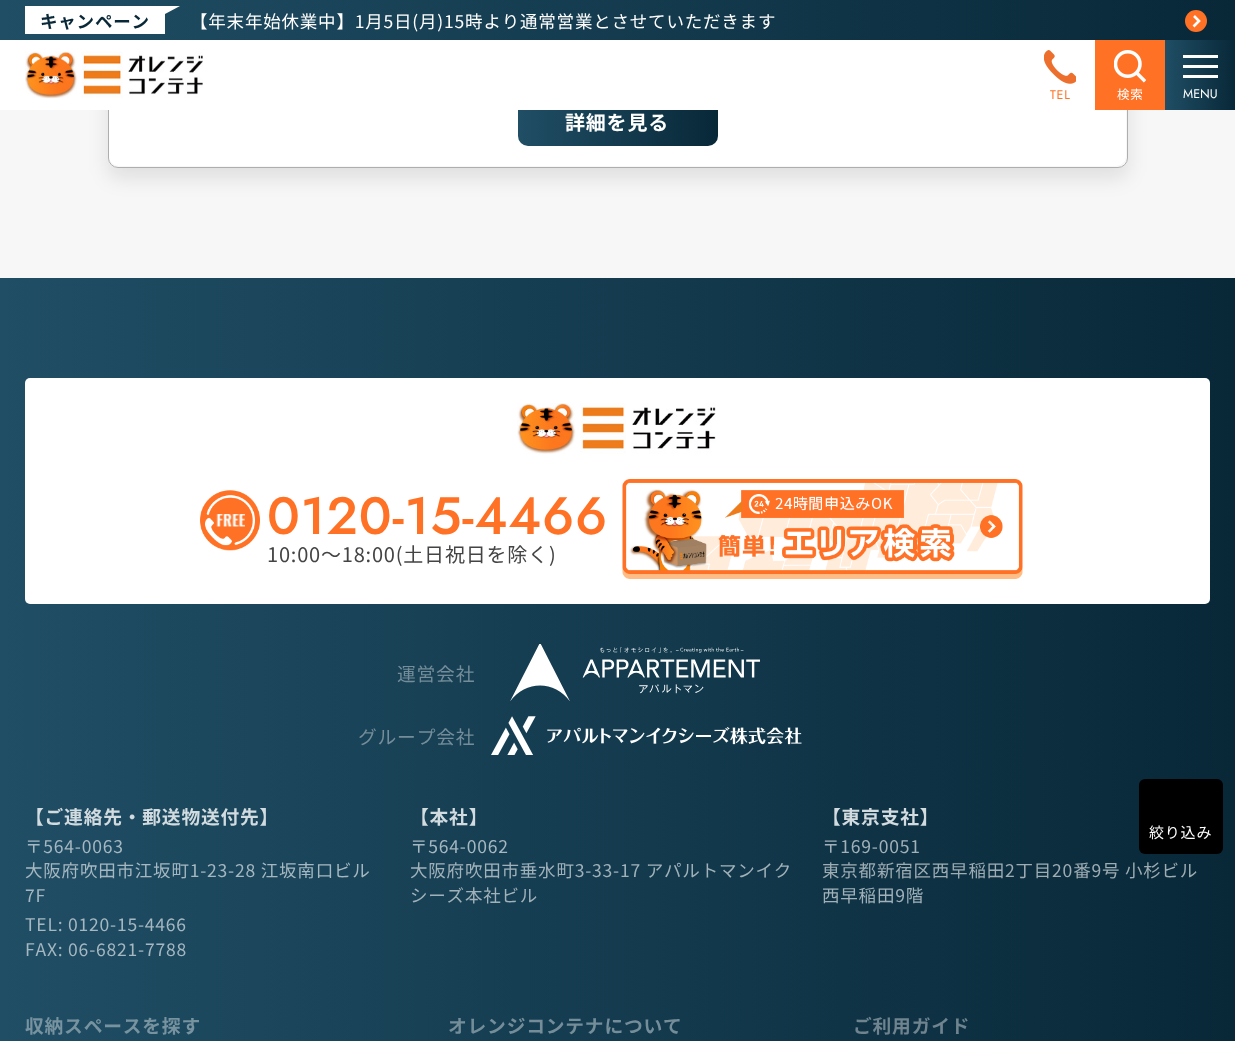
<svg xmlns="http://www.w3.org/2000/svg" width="1235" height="1041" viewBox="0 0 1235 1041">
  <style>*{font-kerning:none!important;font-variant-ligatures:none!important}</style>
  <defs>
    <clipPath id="clip1"><path d="M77 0H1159V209H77ZM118-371H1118C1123.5-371 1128-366.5 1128-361V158C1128 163.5 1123.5 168 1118 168H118C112.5 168 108 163.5 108 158V-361C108-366.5 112.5-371 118-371Z" clip-rule="evenodd"/></clipPath>
    <filter id="blur1" x="-50%" y="-200%" width="200%" height="500%"><feGaussianBlur stdDeviation="10"/></filter>
    <linearGradient id="g1" gradientUnits="userSpaceOnUse" x1="0" y1="20" x2="1235" y2="20"><stop offset="0" stop-color="#204e65"/><stop offset="1" stop-color="#082838"/></linearGradient>
    <linearGradient id="g2" gradientUnits="userSpaceOnUse" x1="518" y1="121" x2="718" y2="121"><stop offset="0" stop-color="#204e65"/><stop offset="1" stop-color="#082838"/></linearGradient>
    <linearGradient id="g3" gradientUnits="userSpaceOnUse" x1="1165" y1="75" x2="1235" y2="75"><stop offset="0" stop-color="#204e65"/><stop offset="1" stop-color="#082838"/></linearGradient>
    <linearGradient id="g4" gradientUnits="userSpaceOnUse" x1="0" y1="926" x2="1235" y2="926"><stop offset="0" stop-color="#204e65"/><stop offset="1" stop-color="#082838"/></linearGradient>
  </defs>
  <rect width="100%" height="100%" fill="#f7f7f7"/>
  <g clip-path="url(#clip1)">
    <rect x="108" y="-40" width="1020" height="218" rx="10" fill="#000000" fill-opacity="0.1" filter="url(#blur1)"/>
  </g>
  <rect x="108.5" y="-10.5" width="1019" height="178" rx="9.5" fill="none" stroke="#aeaeae"/>
  <rect x="109" y="-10" width="1017" height="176" rx="10" fill="#ffffff"/>
  <rect x="0" y="0" width="1235" height="40" fill="url(#g1)"/>
  <rect x="25" y="6" width="140" height="28" fill="#ffffff"/>
  <path d="M165 6H180L165 14Z" fill="#ffffff"/>
  <text x="40" y="28" font-family="Noto Sans JP" font-size="17.5" font-weight="bold" letter-spacing="0.8" fill="#082838">キャンペーン</text>
  <text x="190" y="28" font-family="Noto Sans JP" font-size="17.5" letter-spacing="0.8" fill="#ffffff">【年末年始休業中】1月5日(月)15時より通常営業とさせていただきます</text>
  <circle cx="1196" cy="21" r="11" fill="#ff7225"/>
  <path d="M1194 16L1199 21L1193.5 26.5" fill="none" stroke="#ffffff" stroke-width="2.6"/>
  <rect x="518" y="96" width="200" height="50" rx="10" fill="url(#g2)"/>
  <rect x="0" y="40" width="718" height="70" fill="#ffffff"/>
  <image x="25" y="51" width="178" height="48" href="img1.png"/>
  <image x="1044" y="50" width="32" height="34" href="img2.png"/>
  <text x="1050" y="99" font-family="Jost" font-size="12.5" letter-spacing="0.8" fill="#ff7225">TEL</text>
  <rect x="1095" y="40" width="70" height="70" fill="#ff7225"/>
  <image x="1114" y="50" width="32" height="33" href="img3.png"/>
  <text x="1117" y="99" font-family="Noto Sans JP" font-size="12.5" letter-spacing="0.8" fill="#ffffff">検索</text>
  <rect x="1165" y="40" width="70" height="70" fill="url(#g3)"/>
  <rect x="1183" y="55" width="35" height="3" fill="#ffffff"/>
  <rect x="1183" y="65" width="35" height="3" fill="#ffffff"/>
  <rect x="1183" y="75" width="35" height="3" fill="#ffffff"/>
  <text x="1183" y="98" font-family="Jost" font-size="12.5" fill="#ffffff">MENU</text>
  <text x="565" y="130" font-family="Noto Sans JP" font-size="20" font-weight="bold" letter-spacing="0.8" fill="#ffffff">詳細を見る</text>
  <rect x="0" y="278" width="1235" height="763" fill="url(#g4)"/>
  <rect x="25" y="378" width="1185" height="226" rx="5" fill="#ffffff"/>
  <image x="517" y="403" width="199" height="51" href="img4.png"/>
  <image x="200" y="490" width="60" height="61" href="img5.png"/>
  <text x="267" y="534" font-family="Jost" font-size="52.5" font-weight="500" letter-spacing="0.8" fill="#ff7225">0120-15-4466</text>
  <text x="267" y="562" font-family="Noto Sans JP" font-size="20" letter-spacing="0.8" fill="#444444">10:00～18:00(土日祝日を除く)</text>
  <image x="622" y="479" width="401" height="100" href="img6.png"/>
  <text x="397" y="681" font-family="Noto Sans JP" font-size="18.75" letter-spacing="0.8" fill="#748d99">運営会社</text>
  <image x="510" y="644" width="250" height="57" href="img7.png"/>
  <text x="358" y="744" font-family="Noto Sans JP" font-size="18.75" letter-spacing="0.8" fill="#748d99">グループ会社</text>
  <image x="491" y="716" width="311" height="39" href="img8.png"/>
  <text x="25" y="824" font-family="Noto Sans JP" font-size="18.75" font-weight="bold" letter-spacing="0.8" fill="#d2dbdf">【ご連絡先・郵送物送付先】</text>
  <text x="25" y="853" font-family="Noto Sans JP" font-size="17.5" letter-spacing="0.8" fill="#a5b7c0">〒564-0063</text>
  <text x="25" y="877" font-family="Noto Sans JP" font-size="17.5" letter-spacing="0.8" fill="#a5b7c0">大阪府吹田市江坂町1-23-28 江坂南口ビル</text>
  <text x="25" y="902" font-family="Noto Sans JP" font-size="17.5" letter-spacing="0.8" fill="#a5b7c0">7F</text>
  <text x="25" y="931" font-family="Noto Sans JP" font-size="17.5" letter-spacing="0.8" fill="#a5b7c0">TEL:</text>
  <text x="68" y="931" font-family="Noto Sans JP" font-size="17.5" letter-spacing="0.8" fill="#a5b7c0">0120-15-4466</text>
  <text x="25" y="956" font-family="Noto Sans JP" font-size="17.5" letter-spacing="0.8" fill="#a5b7c0">FAX: 06-6821-7788</text>
  <text x="410" y="824" font-family="Noto Sans JP" font-size="18.75" font-weight="bold" letter-spacing="0.8" fill="#d2dbdf">【本社】</text>
  <text x="410" y="853" font-family="Noto Sans JP" font-size="17.5" letter-spacing="0.8" fill="#a5b7c0">〒564-0062</text>
  <text x="410" y="877" font-family="Noto Sans JP" font-size="17.5" letter-spacing="0.8" fill="#a1b1b9">大阪府吹田市垂水町3-33-17 アパルトマンイク</text>
  <text x="410" y="902" font-family="Noto Sans JP" font-size="17.5" letter-spacing="0.8" fill="#a1b1b9">シーズ本社ビル</text>
  <text x="822" y="824" font-family="Noto Sans JP" font-size="18.75" font-weight="bold" letter-spacing="0.8" fill="#d2dbdf">【東京支社】</text>
  <text x="822" y="853" font-family="Noto Sans JP" font-size="17.5" letter-spacing="0.8" fill="#a1b1b9">〒169-0051</text>
  <text x="822" y="877" font-family="Noto Sans JP" font-size="17.5" letter-spacing="0.8" fill="#9eacb3">東京都新宿区西早稲田2丁目20番9号 小杉ビル</text>
  <text x="822" y="902" font-family="Noto Sans JP" font-size="17.5" letter-spacing="0.8" fill="#a1b1b9">西早稲田9階</text>
  <text x="25" y="1033" font-family="Noto Sans JP" font-size="18.75" font-weight="bold" letter-spacing="0.8" fill="#7893a0">収納スペースを探す</text>
  <text x="448" y="1033" font-family="Noto Sans JP" font-size="18.75" font-weight="bold" letter-spacing="0.8" fill="#748d99">オレンジコンテナについて</text>
  <text x="853" y="1033" font-family="Noto Sans JP" font-size="18.75" font-weight="bold" letter-spacing="0.8" fill="#6f848f">ご利用ガイド</text>
  <rect x="1139" y="779" width="84" height="75" rx="6" fill="#000000"/>
  <text x="1149" y="838" font-family="Noto Sans JP" font-size="15" letter-spacing="0.8" fill="#ffffff">絞り込み</text>
</svg>
